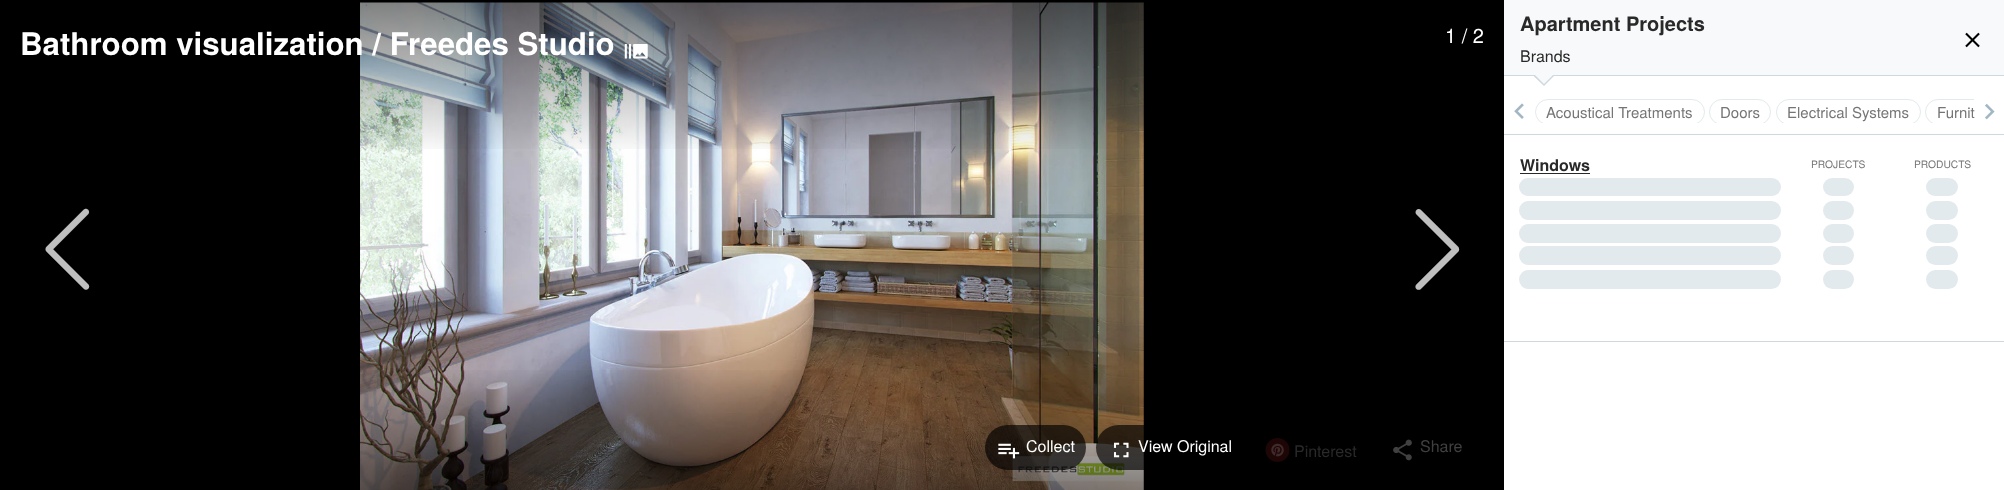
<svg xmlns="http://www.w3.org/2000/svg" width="2004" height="490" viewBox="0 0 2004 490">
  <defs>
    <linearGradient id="g1" gradientUnits="userSpaceOnUse" x1="752" y1="0" x2="752" y2="156"><stop offset="0" stop-color="#000000" stop-opacity="0.5"/><stop offset="1" stop-color="#000000" stop-opacity="0"/></linearGradient>
    <linearGradient id="g2" gradientUnits="userSpaceOnUse" x1="752" y1="490" x2="752" y2="365"><stop offset="0" stop-color="#000000" stop-opacity="0.5"/><stop offset="1" stop-color="#000000" stop-opacity="0"/></linearGradient>
    <clipPath id="clip1"><rect x="1535" y="91" width="439" height="32"/></clipPath>
  </defs>
  <rect width="100%" height="100%" fill="#ffffff"/>
  <rect x="0" y="0" width="1504" height="490" fill="#000000"/>
  <image x="360" y="2" width="784" height="488" href="img1.png"/>
  <rect x="360" y="2" width="784" height="147" fill="url(#g1)"/>
  <text x="20" y="55" font-family="TeX Gyre Heros" font-size="31.25" font-weight="bold" fill="#ffffff">Bathroom visualization / Freedes Studio</text>
  <image x="624" y="44" width="24" height="15" href="img2.png"/>
  <text x="1445" y="43" font-family="TeX Gyre Heros" font-size="20" fill="#ffffff">1 / 2</text>
  <image x="45" y="208" width="45" height="82" href="img3.png"/>
  <image x="1415" y="209" width="45" height="81" href="img4.png"/>
  <rect x="360" y="370" width="784" height="120" fill="url(#g2)"/>
  <rect x="985" y="425" width="101" height="45" rx="22.5" fill="#000000" fill-opacity="0.65"/>
  <image x="998" y="443" width="22" height="16" href="img5.png"/>
  <text x="1026" y="452" font-family="TeX Gyre Heros" font-size="16" fill="#ffffff">Collect</text>
  <rect x="1096" y="425" width="147" height="45" rx="22.5" fill="#000000" fill-opacity="0.65"/>
  <image x="1113" y="442" width="16" height="16" href="img6.png"/>
  <text x="1138" y="452" font-family="TeX Gyre Heros" font-size="16" fill="#ffffff">View Original</text>
  <image x="1265" y="438" width="25" height="24" href="img7.png"/>
  <text x="1294" y="457" font-family="TeX Gyre Heros" font-size="16" fill="#292929">Pinterest</text>
  <image x="1393" y="439" width="19" height="22" href="img8.png"/>
  <text x="1420" y="452" font-family="TeX Gyre Heros" font-size="16" fill="#404040">Share</text>
  <rect x="1504" y="0" width="500" height="75" fill="#f7f9fa"/>
  <rect x="1504" y="75" width="500" height="1" fill="#ced9df"/>
  <text x="1520" y="31" font-family="TeX Gyre Heros" font-size="20" font-weight="bold" fill="#292929">Apartment Projects</text>
  <text x="1520" y="62" font-family="TeX Gyre Heros" font-size="16" fill="#292929">Brands</text>
  <path d="M1532.5 75H1555L1544 86Z" fill="#ced9df"/>
  <path d="M1534 74H1554L1544 84Z" fill="#f7f9fa"/>
  <image x="1514" y="103" width="10" height="16" href="img9.png"/>
  <g clip-path="url(#clip1)">
    <rect x="1535.5" y="99.5" width="169" height="25" rx="12.5" fill="none" stroke="#e3eaed"/>
  </g>
  <text x="1546" y="118" font-family="TeX Gyre Heros" font-size="15" fill="#757575">Acoustical Treatments</text>
  <g clip-path="url(#clip1)">
    <rect x="1709.5" y="99.5" width="61" height="25" rx="12.5" fill="none" stroke="#e3eaed"/>
  </g>
  <text x="1720" y="118" font-family="TeX Gyre Heros" font-size="15" fill="#757575">Doors</text>
  <g clip-path="url(#clip1)">
    <rect x="1776.5" y="99.5" width="144" height="25" rx="12.5" fill="none" stroke="#e3eaed"/>
  </g>
  <text x="1787" y="118" font-family="TeX Gyre Heros" font-size="15" fill="#757575">Electrical Systems</text>
  <image x="1985" y="103" width="10" height="17" href="img10.png"/>
  <g clip-path="url(#clip1)">
    <rect x="1925.5" y="99.5" width="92" height="25" rx="12.5" fill="none" stroke="#e3eaed"/>
  </g>
  <text x="1937" y="118" font-family="TeX Gyre Heros" font-size="15" fill="#757575">Furnit</text>
  <rect x="1504" y="134" width="500" height="1" fill="#ced9df"/>
  <text x="1520" y="171" font-family="TeX Gyre Heros" font-size="16" font-weight="bold" fill="#292929">Windows</text>
  <rect x="1520" y="173" width="70" height="1" fill="#292929"/>
  <text x="1811" y="168" font-family="TeX Gyre Heros" font-size="10.25" fill="#757575">PROJECTS</text>
  <text x="1914" y="168" font-family="TeX Gyre Heros" font-size="10.25" fill="#757575">PRODUCTS</text>
  <rect x="1519" y="178" width="262" height="18" rx="9" fill="#e3eaed"/>
  <rect x="1823" y="178" width="31" height="18" rx="9" fill="#e3eaed"/>
  <rect x="1926" y="178" width="32" height="18" rx="9" fill="#e3eaed"/>
  <rect x="1519" y="201" width="262" height="19" rx="9.5" fill="#e3eaed"/>
  <rect x="1823" y="201" width="31" height="19" rx="9.5" fill="#e3eaed"/>
  <rect x="1926" y="201" width="32" height="19" rx="9.5" fill="#e3eaed"/>
  <rect x="1519" y="224" width="262" height="19" rx="9.5" fill="#e3eaed"/>
  <rect x="1823" y="224" width="31" height="19" rx="9.5" fill="#e3eaed"/>
  <rect x="1926" y="224" width="32" height="19" rx="9.5" fill="#e3eaed"/>
  <rect x="1519" y="246" width="262" height="19" rx="9.5" fill="#e3eaed"/>
  <rect x="1823" y="246" width="31" height="19" rx="9.5" fill="#e3eaed"/>
  <rect x="1926" y="246" width="32" height="19" rx="9.5" fill="#e3eaed"/>
  <rect x="1519" y="270" width="262" height="19" rx="9.5" fill="#e3eaed"/>
  <rect x="1823" y="270" width="31" height="19" rx="9.5" fill="#e3eaed"/>
  <rect x="1926" y="270" width="32" height="19" rx="9.5" fill="#e3eaed"/>
  <rect x="1504" y="341" width="500" height="1" fill="#ced9df"/>
  <image x="1965" y="32" width="15" height="16" href="img11.png"/>
</svg>
